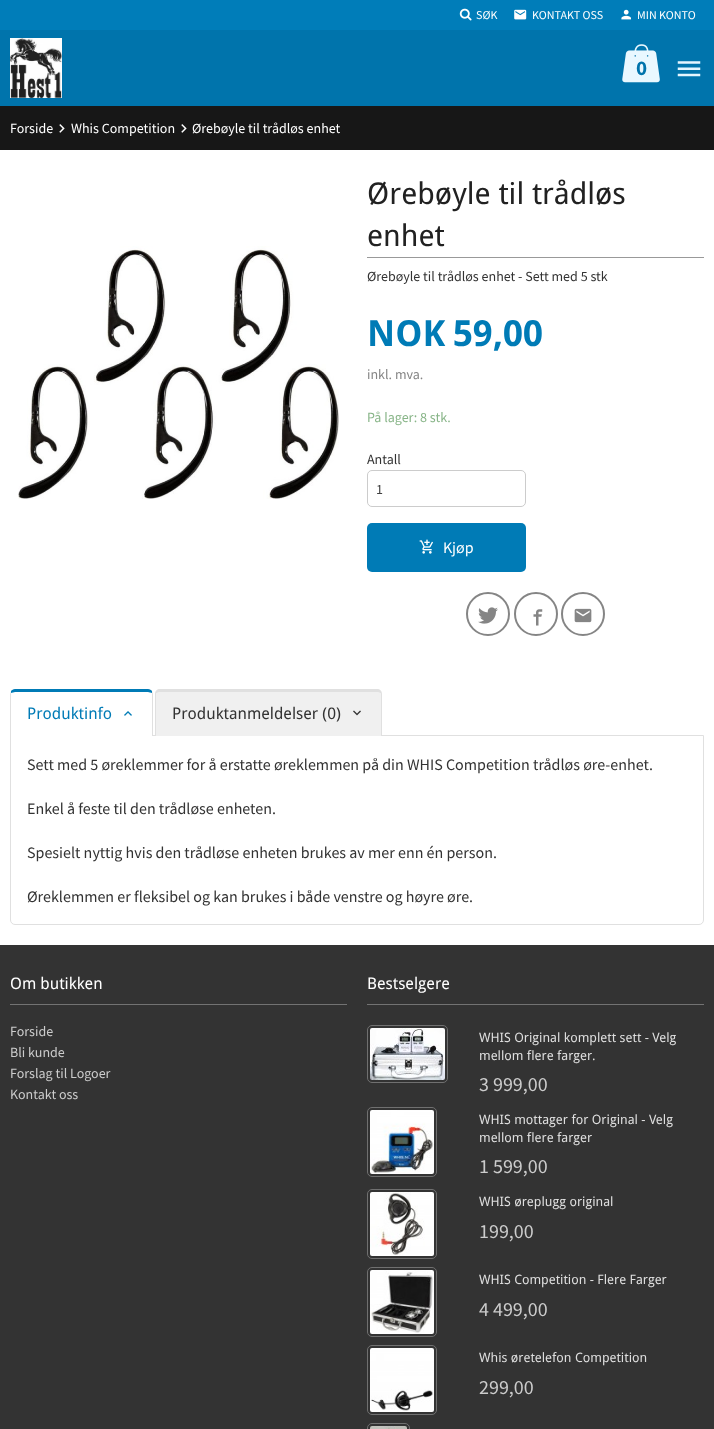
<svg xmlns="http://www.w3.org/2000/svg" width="714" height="1429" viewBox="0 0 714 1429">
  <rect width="100%" height="100%" fill="#333333"/>
  <rect x="0" y="0" width="714" height="30" fill="#007db9"/>
  <image x="459" y="8" width="13" height="13" href="img1.png"/>
  <text x="476" y="19" font-family="Source Sans Pro" font-size="12" fill="#ffffff">SØK</text>
  <image x="514" y="9" width="13" height="11" href="img2.png"/>
  <text x="532" y="19" font-family="Source Sans Pro" font-size="12" fill="#ffffff">KONTAKT OSS</text>
  <image x="621" y="9" width="10" height="11" href="img3.png"/>
  <text x="637" y="19" font-family="Source Sans Pro" font-size="12" fill="#ffffff">MIN KONTO</text>
  <rect x="0" y="30" width="714" height="76" fill="#0074ac"/>
  <image x="10" y="38" width="52" height="60" href="img4.png"/>
  <image x="622" y="44" width="38" height="39" href="img5.png"/>
  <text x="636" y="75" font-family="Source Sans Pro" font-size="21" font-weight="bold" fill="#0074ac">0</text>
  <image x="677" y="61" width="24" height="16" href="img6.png"/>
  <rect x="0" y="106" width="714" height="44" fill="#171717"/>
  <text x="10" y="133" font-family="Source Sans Pro" font-size="14" fill="#ffffff">Forside</text>
  <image x="59" y="124" width="6" height="9" href="img7.png"/>
  <text x="71" y="133" font-family="Source Sans Pro" font-size="14" fill="#ffffff">Whis Competition</text>
  <image x="181" y="124" width="6" height="9" href="img7.png"/>
  <text x="192" y="133" font-family="Source Sans Pro" font-size="14" fill="#ffffff">Ørebøyle til trådløs enhet</text>
  <rect x="0" y="150" width="714" height="795" fill="#ffffff"/>
  <image x="18" y="246" width="321" height="253" href="img8.png"/>
  <rect x="367" y="257" width="337" height="1" fill="#999999"/>
  <text x="367" y="204" font-family="Droid Sans" font-size="30" fill="#212121">Ørebøyle til trådløs</text>
  <text x="367" y="246" font-family="Droid Sans" font-size="30" fill="#212121">enhet</text>
  <text x="367" y="281" font-family="Source Sans Pro" font-size="14" fill="#333333">Ørebøyle til trådløs enhet - Sett med 5 stk</text>
  <text x="367" y="346" font-family="Droid Sans" font-size="36" font-weight="bold" fill="#007bb6">NOK</text>
  <text x="453" y="346" font-family="Droid Sans" font-size="36" font-weight="bold" fill="#007bb6">59,00</text>
  <text x="367" y="379" font-family="Source Sans Pro" font-size="14" fill="#858585">inkl. mva.</text>
  <text x="367" y="422" font-family="Source Sans Pro" font-size="14" fill="#88b588">På lager: 8 stk.</text>
  <text x="367" y="464" font-family="Source Sans Pro" font-size="14" fill="#333333">Antall</text>
  <rect x="367.5" y="470.5" width="158" height="36" rx="4.5" fill="none" stroke="#cccccc"/>
  <text x="376" y="494" font-family="Source Sans Pro" font-size="14" fill="#404040">1</text>
  <rect x="367" y="523" width="159" height="49" rx="5" fill="#007bb6"/>
  <image x="419" y="539" width="14" height="15" href="img9.png"/>
  <text x="443" y="553" font-family="Source Sans Pro" font-size="16" fill="#ffffff">Kjøp</text>
  <circle cx="488" cy="614" r="21" fill="none" stroke="#858585" stroke-width="2"/>
  <image x="478" y="607" width="20" height="17" href="img10.png"/>
  <circle cx="536" cy="614" r="21" fill="none" stroke="#858585" stroke-width="2"/>
  <image x="533" y="609" width="10" height="17" href="img11.png"/>
  <circle cx="583" cy="614" r="21" fill="none" stroke="#858585" stroke-width="2"/>
  <image x="574" y="608" width="18" height="15" href="img12.png"/>
  <path d="M10.5 735.5H703.5V920C703.5 922.5 701.5 924.5 699 924.5H15C12.5 924.5 10.5 922.5 10.5 920Z" fill="none" stroke="#e0e0e0"/>
  <path d="M15 692H148C150 692 152 693 152 694V736H11V694C11 693 13 692 15 692Z" fill="#ffffff"/>
  <path d="M15 689C13 689 12 690 11 691V693C12 693 14 692 15 692H148C149 692 151 693 152 693V691C151 690 150 689 148 689Z" fill="#007bb6"/>
  <path d="M152 736H153V694L152 691V693C152 694 152 731 152 736Z" fill="#e0e0e0"/>
  <path d="M10 736H11C11 731 11 694 11 693V691L10 694Z" fill="#e0e0e0"/>
  <text x="27" y="719" font-family="Droid Sans" font-size="16" fill="#007bb6">Produktinfo</text>
  <image x="124" y="711" width="8" height="5" href="img13.png"/>
  <path d="M160 692H377C379 692 381 693 381 694V736H156V694C156 693 158 692 160 692Z" fill="#f0f0f0"/>
  <path d="M160 689H377C380 689 382 691 382 694V736H155V694C155 691 157 689 160 689ZM160 692H377C379 692 381 693 381 694V736H156V694C156 693 158 692 160 692Z" fill="#e0e0e0" fill-rule="evenodd"/>
  <text x="172" y="719" font-family="Droid Sans" font-size="16" fill="#333333">Produktanmeldelser (0)</text>
  <image x="353" y="710" width="8" height="6" href="img14.png"/>
  <text x="27" y="770" font-family="Source Sans Pro" font-size="16" fill="#333333">Sett med 5 øreklemmer for å erstatte øreklemmen på din WHIS Competition trådløs øre-enhet.</text>
  <text x="27" y="814" font-family="Source Sans Pro" font-size="16" fill="#333333">Enkel å feste til den trådløse enheten.</text>
  <text x="27" y="858" font-family="Source Sans Pro" font-size="16" fill="#333333">Spesielt nyttig hvis den trådløse enheten brukes av mer enn én person.</text>
  <text x="27" y="902" font-family="Source Sans Pro" font-size="16" fill="#333333">Øreklemmen er fleksibel og kan brukes i både venstre og høyre øre.</text>
  <rect x="10" y="1004" width="337" height="1" fill="#737373"/>
  <text x="10" y="989" font-family="Droid Sans" font-size="16" fill="#ffffff">Om butikken</text>
  <text x="10" y="1036" font-family="Source Sans Pro" font-size="14" fill="#cccccc">Forside</text>
  <text x="10" y="1057" font-family="Source Sans Pro" font-size="14" fill="#cccccc">Bli kunde</text>
  <text x="10" y="1078" font-family="Source Sans Pro" font-size="14" fill="#cccccc">Forslag til Logoer</text>
  <text x="10" y="1099" font-family="Source Sans Pro" font-size="14" fill="#cccccc">Kontakt oss</text>
  <rect x="367" y="1004" width="337" height="1" fill="#737373"/>
  <text x="367" y="989" font-family="Droid Sans" font-size="16" fill="#ffffff">Bestselgere</text>
  <rect x="367.5" y="1025.5" width="80" height="57" rx="4.5" fill="none" stroke="#707070"/>
  <image x="370" y="1028" width="75" height="52" href="img15.png"/>
  <text x="479" y="1042" font-family="Droid Sans" font-size="13" fill="#dedede">WHIS Original komplett sett - Velg</text>
  <text x="479" y="1060" font-family="Droid Sans" font-size="13" fill="#dedede">mellom flere farger.</text>
  <text x="479" y="1091" font-family="Source Sans Pro" font-size="20" fill="#cccccc">3 999,00</text>
  <rect x="367.5" y="1107.5" width="69" height="69" rx="4.5" fill="none" stroke="#707070"/>
  <image x="370" y="1110" width="64" height="64" href="img16.png"/>
  <text x="479" y="1124" font-family="Droid Sans" font-size="13" fill="#dedede">WHIS mottager for Original - Velg</text>
  <text x="479" y="1142" font-family="Droid Sans" font-size="13" fill="#dedede">mellom flere farger</text>
  <text x="479" y="1173" font-family="Source Sans Pro" font-size="20" fill="#cccccc">1 599,00</text>
  <rect x="367.5" y="1189.5" width="69" height="69" rx="4.5" fill="none" stroke="#707070"/>
  <image x="370" y="1192" width="64" height="64" href="img17.png"/>
  <text x="479" y="1206" font-family="Droid Sans" font-size="13" fill="#dedede">WHIS øreplugg original</text>
  <text x="479" y="1238" font-family="Source Sans Pro" font-size="20" fill="#cccccc">199,00</text>
  <rect x="367.5" y="1267.5" width="69" height="69" rx="4.5" fill="none" stroke="#707070"/>
  <image x="370" y="1270" width="64" height="64" href="img18.png"/>
  <text x="479" y="1284" font-family="Droid Sans" font-size="13" fill="#dedede">WHIS Competition - Flere Farger</text>
  <text x="479" y="1316" font-family="Source Sans Pro" font-size="20" fill="#cccccc">4 499,00</text>
  <rect x="367.5" y="1345.5" width="69" height="69" rx="4.5" fill="none" stroke="#707070"/>
  <image x="370" y="1348" width="64" height="64" href="img19.png"/>
  <text x="479" y="1362" font-family="Droid Sans" font-size="13" fill="#dedede">Whis øretelefon Competition</text>
  <text x="479" y="1394" font-family="Source Sans Pro" font-size="20" fill="#cccccc">299,00</text>
  <rect x="367.5" y="1423.5" width="42" height="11" rx="4.5" fill="none" stroke="#707070"/>
  <image x="370" y="1426" width="37" height="3" href="img20.png"/>
</svg>
